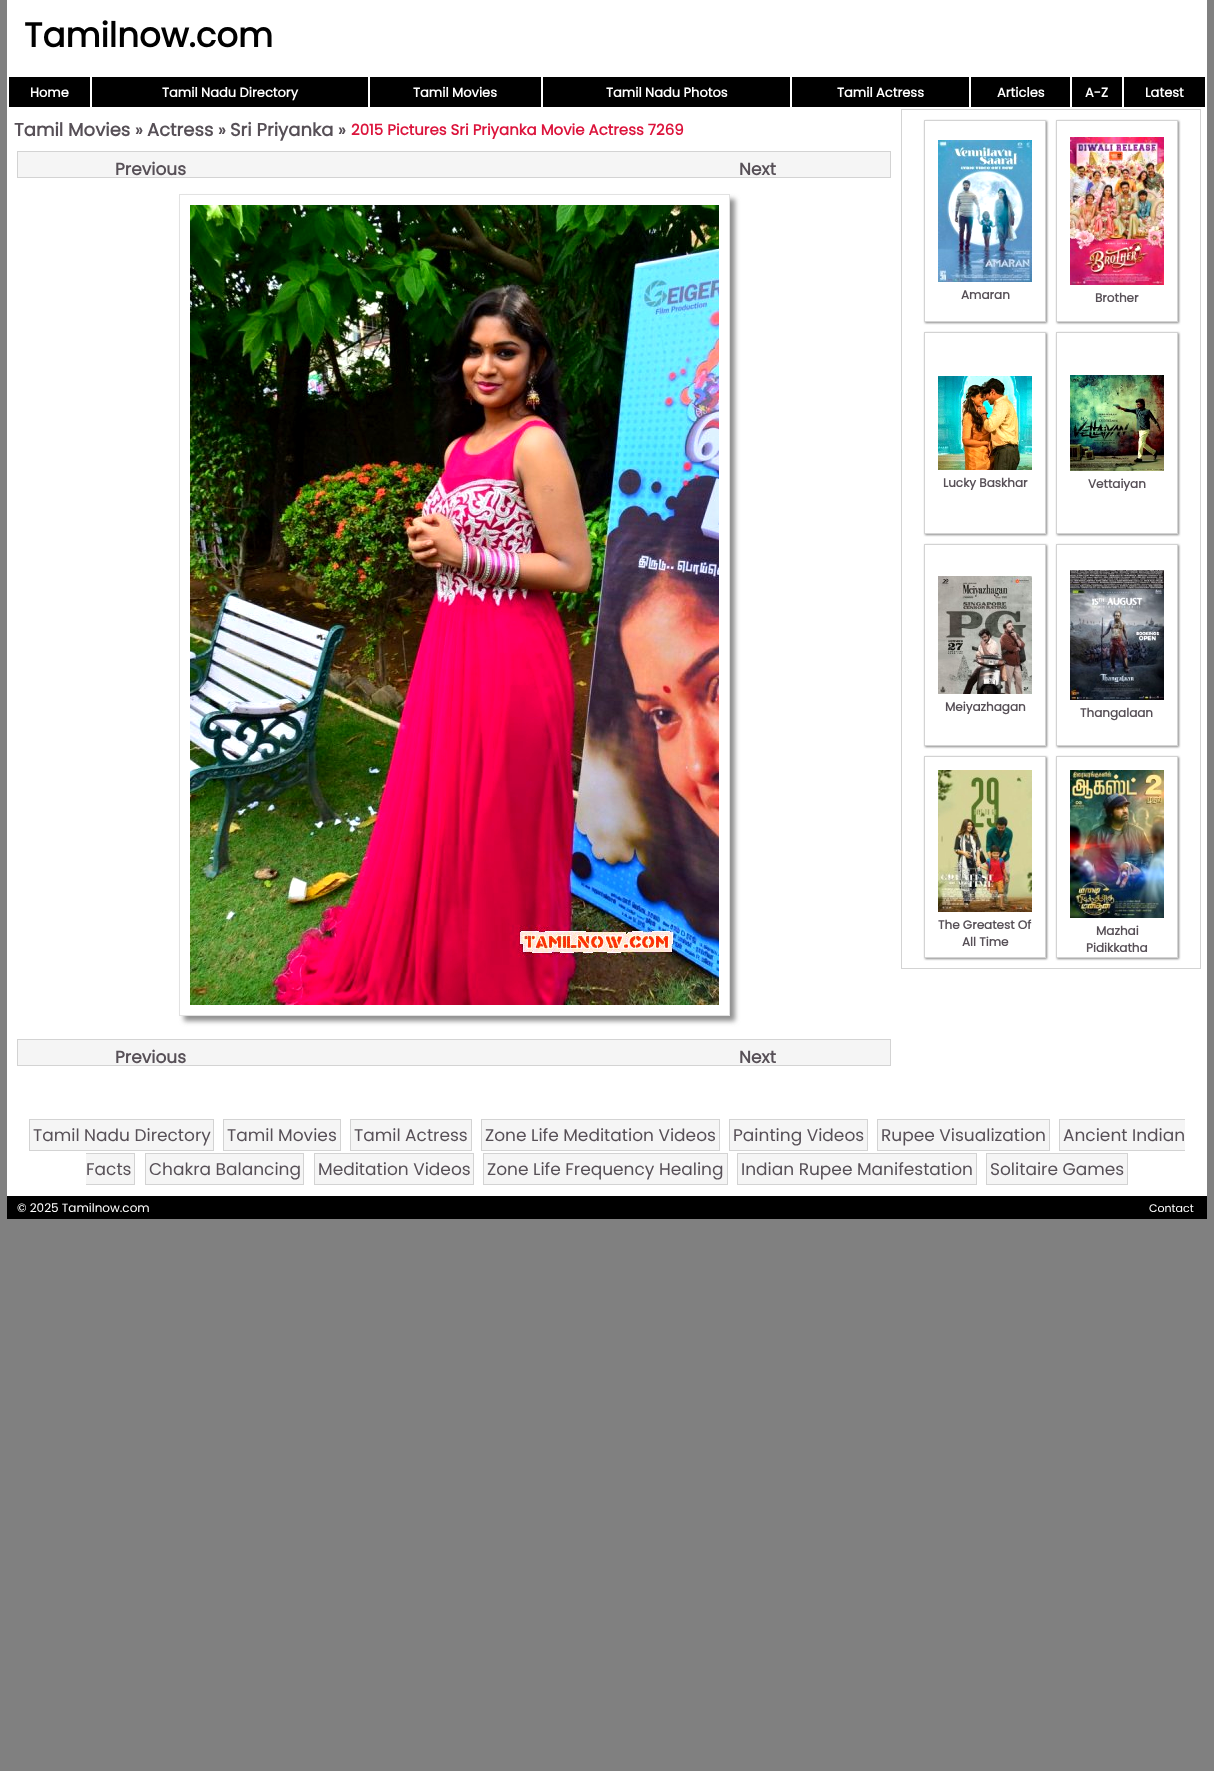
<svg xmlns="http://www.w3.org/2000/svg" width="1214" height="1771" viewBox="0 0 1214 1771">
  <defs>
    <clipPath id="clip1"><path d="M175 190H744V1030H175ZM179 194H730V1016H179Z" clip-rule="evenodd"/></clipPath>
    <filter id="blur1" x="-50%" y="-200%" width="200%" height="500%"><feGaussianBlur stdDeviation="2.5"/></filter>
    <clipPath id="clip2"><path d="M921 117H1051V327H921ZM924 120H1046V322H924Z" clip-rule="evenodd"/></clipPath>
    <filter id="blur2" x="-50%" y="-200%" width="200%" height="500%"><feGaussianBlur stdDeviation="1"/></filter>
    <clipPath id="clip3"><path d="M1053 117H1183V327H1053ZM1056 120H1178V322H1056Z" clip-rule="evenodd"/></clipPath>
    <clipPath id="clip4"><path d="M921 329H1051V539H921ZM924 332H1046V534H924Z" clip-rule="evenodd"/></clipPath>
    <clipPath id="clip5"><path d="M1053 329H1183V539H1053ZM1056 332H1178V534H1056Z" clip-rule="evenodd"/></clipPath>
    <clipPath id="clip6"><path d="M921 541H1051V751H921ZM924 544H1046V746H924Z" clip-rule="evenodd"/></clipPath>
    <clipPath id="clip7"><path d="M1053 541H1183V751H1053ZM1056 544H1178V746H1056Z" clip-rule="evenodd"/></clipPath>
    <clipPath id="clip8"><path d="M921 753H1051V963H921ZM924 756H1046V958H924Z" clip-rule="evenodd"/></clipPath>
    <clipPath id="clip9"><path d="M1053 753H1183V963H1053ZM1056 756H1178V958H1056Z" clip-rule="evenodd"/></clipPath>
  </defs>
  <rect width="100%" height="100%" fill="#808080"/>
  <rect x="7" y="0" width="1200" height="1196" fill="#ffffff"/>
  <text x="24" y="47" font-family="Poppins" font-size="34" font-weight="bold" fill="#000000">Tamilnow.com</text>
  <rect x="9" y="77" width="81" height="30" fill="#000000"/>
  <text x="30" y="97" font-family="Poppins" font-size="13" font-weight="bold" fill="#ffffff">Home</text>
  <rect x="92" y="77" width="276" height="30" fill="#000000"/>
  <text x="162" y="97" font-family="Poppins" font-size="13" font-weight="bold" fill="#ffffff">Tamil Nadu Directory</text>
  <rect x="370" y="77" width="171" height="30" fill="#000000"/>
  <text x="413" y="97" font-family="Poppins" font-size="13" font-weight="bold" fill="#ffffff">Tamil Movies</text>
  <rect x="543" y="77" width="247" height="30" fill="#000000"/>
  <text x="606" y="97" font-family="Poppins" font-size="13" font-weight="bold" fill="#ffffff">Tamil Nadu Photos</text>
  <rect x="792" y="77" width="177" height="30" fill="#000000"/>
  <text x="837" y="97" font-family="Poppins" font-size="13" font-weight="bold" fill="#ffffff">Tamil Actress</text>
  <rect x="971" y="77" width="99" height="30" fill="#000000"/>
  <text x="997" y="97" font-family="Poppins" font-size="13" font-weight="bold" fill="#ffffff">Articles</text>
  <rect x="1072" y="77" width="50" height="30" fill="#000000"/>
  <text x="1085" y="97" font-family="Poppins" font-size="13" font-weight="bold" fill="#ffffff">A-Z</text>
  <rect x="1124" y="77" width="81" height="30" fill="#000000"/>
  <text x="1145" y="97" font-family="Poppins" font-size="13" font-weight="bold" fill="#ffffff">Latest</text>
  <text x="14" y="136" font-family="Poppins" font-size="18" font-weight="bold" fill="#575057">Tamil Movies</text>
  <text x="135" y="136" font-family="Poppins" font-size="17" font-weight="bold" fill="#575057">»</text>
  <text x="147" y="136" font-family="Poppins" font-size="18" font-weight="bold" fill="#575057">Actress</text>
  <text x="218" y="136" font-family="Poppins" font-size="17" font-weight="bold" fill="#575057">»</text>
  <text x="230" y="136" font-family="Poppins" font-size="18" font-weight="bold" fill="#575057">Sri Priyanka</text>
  <text x="338" y="136" font-family="Poppins" font-size="17" font-weight="bold" fill="#575057">»</text>
  <text x="351" y="135" font-family="Poppins" font-size="15" font-weight="bold" fill="#dc143c">2015 Pictures Sri Priyanka Movie Actress 7269</text>
  <rect x="17.5" y="151.5" width="873" height="26" fill="#f5f5f5" stroke="#d3d3d3"/>
  <text x="115" y="175" font-family="Poppins" font-size="17" font-weight="bold" fill="#575057">Previous</text>
  <text x="739" y="175" font-family="Poppins" font-size="17" font-weight="bold" fill="#575057">Next</text>
  <g clip-path="url(#clip1)">
    <rect x="184" y="199" width="551" height="822" fill="#909090" filter="url(#blur1)"/>
  </g>
  <rect x="179.5" y="194.5" width="550" height="821" fill="none" stroke="#e2e2e2"/>
  <image x="190" y="205" width="529" height="800" href="img1.png"/>
  <rect x="17.5" y="1039.5" width="873" height="26" fill="#f5f5f5" stroke="#d3d3d3"/>
  <text x="115" y="1063" font-family="Poppins" font-size="17" font-weight="bold" fill="#575057">Previous</text>
  <text x="739" y="1063" font-family="Poppins" font-size="17" font-weight="bold" fill="#575057">Next</text>
  <rect x="901.5" y="109.5" width="299" height="859" fill="none" stroke="#d3d3d3"/>
  <g clip-path="url(#clip2)">
    <rect x="925" y="121" width="122" height="202" fill="#888888" filter="url(#blur2)"/>
  </g>
  <rect x="924.5" y="120.5" width="121" height="201" fill="none" stroke="#d3d3d3"/>
  <image x="938" y="140" width="94" height="142" href="img2.png"/>
  <text x="961" y="299" font-family="Poppins" font-size="12" font-weight="bold" fill="#575057">Amaran</text>
  <g clip-path="url(#clip3)">
    <rect x="1057" y="121" width="122" height="202" fill="#888888" filter="url(#blur2)"/>
  </g>
  <rect x="1056.5" y="120.5" width="121" height="201" fill="none" stroke="#d3d3d3"/>
  <image x="1070" y="137" width="94" height="148" href="img3.png"/>
  <text x="1095" y="302" font-family="Poppins" font-size="12" font-weight="bold" fill="#575057">Brother</text>
  <g clip-path="url(#clip4)">
    <rect x="925" y="333" width="122" height="202" fill="#888888" filter="url(#blur2)"/>
  </g>
  <rect x="924.5" y="332.5" width="121" height="201" fill="none" stroke="#d3d3d3"/>
  <image x="938" y="376" width="94" height="94" href="img4.png"/>
  <text x="943" y="487" font-family="Poppins" font-size="12" font-weight="bold" fill="#575057">Lucky Baskhar</text>
  <g clip-path="url(#clip5)">
    <rect x="1057" y="333" width="122" height="202" fill="#888888" filter="url(#blur2)"/>
  </g>
  <rect x="1056.5" y="332.5" width="121" height="201" fill="none" stroke="#d3d3d3"/>
  <image x="1070" y="375" width="94" height="96" href="img5.png"/>
  <text x="1088" y="488" font-family="Poppins" font-size="12" font-weight="bold" fill="#575057">Vettaiyan</text>
  <g clip-path="url(#clip6)">
    <rect x="925" y="545" width="122" height="202" fill="#888888" filter="url(#blur2)"/>
  </g>
  <rect x="924.5" y="544.5" width="121" height="201" fill="none" stroke="#d3d3d3"/>
  <image x="938" y="576" width="94" height="118" href="img6.png"/>
  <text x="945" y="711" font-family="Poppins" font-size="12" font-weight="bold" fill="#575057">Meiyazhagan</text>
  <g clip-path="url(#clip7)">
    <rect x="1057" y="545" width="122" height="202" fill="#888888" filter="url(#blur2)"/>
  </g>
  <rect x="1056.5" y="544.5" width="121" height="201" fill="none" stroke="#d3d3d3"/>
  <image x="1070" y="570" width="94" height="130" href="img7.png"/>
  <text x="1080" y="717" font-family="Poppins" font-size="12" font-weight="bold" fill="#575057">Thangalaan</text>
  <g clip-path="url(#clip8)">
    <rect x="925" y="757" width="122" height="202" fill="#888888" filter="url(#blur2)"/>
  </g>
  <rect x="924.5" y="756.5" width="121" height="201" fill="none" stroke="#d3d3d3"/>
  <image x="938" y="770" width="94" height="142" href="img8.png"/>
  <text x="938" y="929" font-family="Poppins" font-size="12" font-weight="bold" fill="#575057">The Greatest Of</text>
  <text x="962" y="946" font-family="Poppins" font-size="12" font-weight="bold" fill="#575057">All Time</text>
  <g clip-path="url(#clip9)">
    <rect x="1057" y="757" width="122" height="202" fill="#888888" filter="url(#blur2)"/>
  </g>
  <rect x="1056.5" y="756.5" width="121" height="201" fill="none" stroke="#d3d3d3"/>
  <image x="1070" y="770" width="94" height="148" href="img9.png"/>
  <text x="1096" y="935" font-family="Poppins" font-size="12" font-weight="bold" fill="#575057">Mazhai</text>
  <text x="1086" y="952" font-family="Poppins" font-size="12" font-weight="bold" fill="#575057">Pidikkatha</text>
  <rect x="29.5" y="1119.5" width="184" height="31" fill="#f5f5f5" stroke="#d3d3d3"/>
  <text x="33" y="1141" font-family="Poppins" font-size="17" fill="#575057">Tamil Nadu Directory</text>
  <rect x="223.5" y="1119.5" width="117" height="31" fill="#f5f5f5" stroke="#d3d3d3"/>
  <text x="227" y="1141" font-family="Poppins" font-size="17" fill="#575057">Tamil Movies</text>
  <rect x="350.5" y="1119.5" width="121" height="31" fill="#f5f5f5" stroke="#d3d3d3"/>
  <text x="354" y="1141" font-family="Poppins" font-size="17" fill="#575057">Tamil Actress</text>
  <rect x="481.5" y="1119.5" width="238" height="31" fill="#f5f5f5" stroke="#d3d3d3"/>
  <text x="485" y="1141" font-family="Poppins" font-size="17" fill="#575057">Zone Life Meditation Videos</text>
  <rect x="729.5" y="1119.5" width="138" height="31" fill="#f5f5f5" stroke="#d3d3d3"/>
  <text x="733" y="1141" font-family="Poppins" font-size="17" fill="#575057">Painting Videos</text>
  <rect x="877.5" y="1119.5" width="172" height="31" fill="#f5f5f5" stroke="#d3d3d3"/>
  <text x="881" y="1141" font-family="Poppins" font-size="17" fill="#575057">Rupee Visualization</text>
  <rect x="1060" y="1120" width="125" height="30" fill="#f5f5f5"/>
  <text x="1063" y="1141" font-family="Poppins" font-size="17" fill="#575057">Ancient Indian</text>
  <rect x="1059" y="1119" width="126" height="1" fill="#d3d3d3"/>
  <rect x="1059" y="1150" width="126" height="1" fill="#d3d3d3"/>
  <rect x="1059" y="1119" width="1" height="32" fill="#d3d3d3"/>
  <rect x="86" y="1154" width="48" height="30" fill="#f5f5f5"/>
  <text x="86" y="1175" font-family="Poppins" font-size="17" fill="#575057">Facts</text>
  <rect x="86" y="1153" width="49" height="1" fill="#d3d3d3"/>
  <rect x="134" y="1153" width="1" height="32" fill="#d3d3d3"/>
  <rect x="86" y="1184" width="49" height="1" fill="#d3d3d3"/>
  <rect x="145.5" y="1153.5" width="158" height="31" fill="#f5f5f5" stroke="#d3d3d3"/>
  <text x="149" y="1175" font-family="Poppins" font-size="17" fill="#575057">Chakra Balancing</text>
  <rect x="314.5" y="1153.5" width="159" height="31" fill="#f5f5f5" stroke="#d3d3d3"/>
  <text x="318" y="1175" font-family="Poppins" font-size="17" fill="#575057">Meditation Videos</text>
  <rect x="483.5" y="1153.5" width="244" height="31" fill="#f5f5f5" stroke="#d3d3d3"/>
  <text x="487" y="1175" font-family="Poppins" font-size="17" fill="#575057">Zone Life Frequency Healing</text>
  <rect x="737.5" y="1153.5" width="239" height="31" fill="#f5f5f5" stroke="#d3d3d3"/>
  <text x="741" y="1175" font-family="Poppins" font-size="17" fill="#575057">Indian Rupee Manifestation</text>
  <rect x="986.5" y="1153.5" width="141" height="31" fill="#f5f5f5" stroke="#d3d3d3"/>
  <text x="990" y="1175" font-family="Poppins" font-size="17" fill="#575057">Solitaire Games</text>
  <rect x="7" y="1196" width="1200" height="23" fill="#000000"/>
  <text x="17" y="1212" font-family="Poppins" font-size="12" fill="#ffffff">© 2025 Tamilnow.com</text>
  <text x="1149" y="1212" font-family="Poppins" font-size="11" fill="#ffffff">Contact</text>
</svg>
